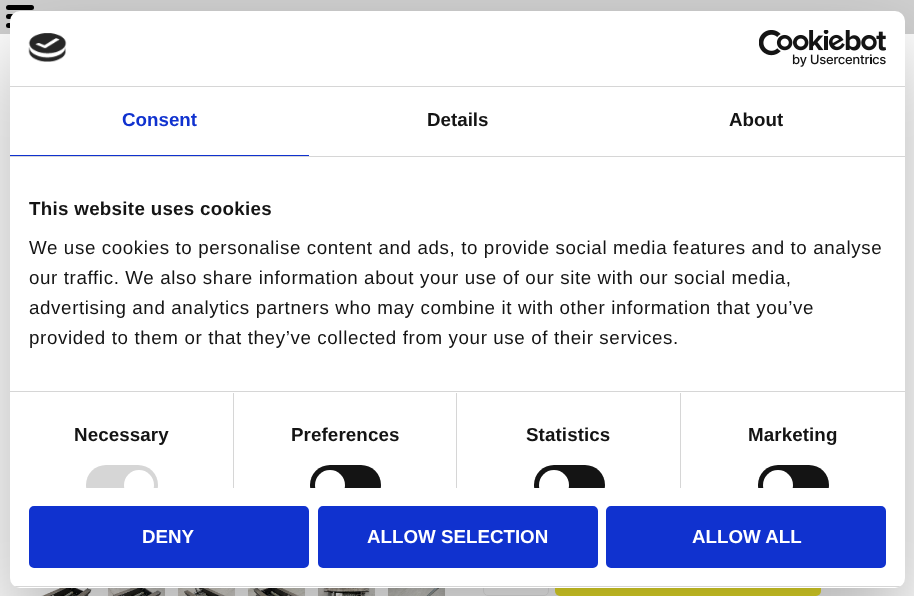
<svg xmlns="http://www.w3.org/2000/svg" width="914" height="596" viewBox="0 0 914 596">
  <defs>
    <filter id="blur1" x="-50%" y="-200%" width="200%" height="500%"><feGaussianBlur stdDeviation="42.5"/></filter>
    <clipPath id="clip1"><rect x="10" y="158" width="895" height="330"/></clipPath>
    <clipPath id="clip2"><rect x="10" y="11" width="895" height="577" rx="10"/></clipPath>
  </defs>
  <rect width="100%" height="100%" fill="#ffffff"/>
  <rect x="0" y="0" width="914" height="34" fill="#d0d0d0"/>
  <rect x="6" y="14" width="28" height="5" rx="2.5" fill="#000000"/>
  <rect x="6" y="5" width="28" height="5" rx="2.5" fill="#000000"/>
  <rect x="6" y="23" width="28" height="5" rx="2.5" fill="#000000"/>
  <image x="41" y="588" width="51" height="8" href="img1.png"/>
  <image x="108" y="588" width="57" height="8" href="img2.png"/>
  <image x="178" y="588" width="57" height="8" href="img3.png"/>
  <image x="248" y="588" width="57" height="8" href="img4.png"/>
  <image x="318" y="588" width="57" height="8" href="img5.png"/>
  <image x="388" y="588" width="57" height="8" href="img6.png"/>
  <rect x="483.5" y="544.5" width="65" height="51" rx="4.5" fill="none" stroke="#eeeeee"/>
  <rect x="555" y="544" width="266" height="52" rx="5" fill="#f0e72a"/>
  <rect x="10" y="51" width="895" height="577" rx="10" fill="#000000" fill-opacity="0.3" filter="url(#blur1)"/>
  <rect x="10" y="11" width="895" height="577" rx="10" fill="#ffffff"/>
  <rect x="10" y="86" width="895" height="1" fill="#d6d6d6"/>
  <image x="28" y="33" width="39" height="29" href="img7.png"/>
  <image x="759" y="30" width="127" height="37" href="img8.png"/>
  <rect x="10" y="156" width="895" height="1" fill="#d6d6d6"/>
  <rect x="10" y="155" width="299" height="1" fill="#1032cf"/>
  <text x="122" y="126" font-family="Liberation Sans" font-size="18.75" font-weight="bold" fill="#1032cf">Consent</text>
  <text x="427" y="126" font-family="Liberation Sans" font-size="18.75" font-weight="bold" fill="#141414">Details</text>
  <text x="729" y="126" font-family="Liberation Sans" font-size="18.75" font-weight="bold" fill="#141414">About</text>
  <rect x="10" y="391" width="895" height="1" fill="#d6d6d6"/>
  <text x="29" y="215" font-family="Liberation Sans" font-size="18.75" font-weight="bold" letter-spacing="0.3" fill="#141414">This website uses cookies</text>
  <text x="29" y="254" font-family="Liberation Sans" font-size="18.75" letter-spacing="0.62" fill="#141414">We use cookies to personalise content and ads, to provide social media features and to analyse</text>
  <text x="29" y="284" font-family="Liberation Sans" font-size="18.75" letter-spacing="0.62" fill="#141414">our traffic. We also share information about your use of our site with our social media,</text>
  <text x="29" y="314" font-family="Liberation Sans" font-size="18.75" letter-spacing="0.62" fill="#141414">advertising and analytics partners who may combine it with other information that you’ve</text>
  <text x="29" y="344" font-family="Liberation Sans" font-size="18.75" letter-spacing="0.62" fill="#141414">provided to them or that they’ve collected from your use of their services.</text>
  <rect x="233" y="393" width="1" height="95" fill="#d6d6d6"/>
  <text x="74" y="441" font-family="Liberation Sans" font-size="18.75" font-weight="bold" letter-spacing="0.1" fill="#141414">Necessary</text>
  <g clip-path="url(#clip1)">
    <rect x="86" y="465" width="72" height="40" rx="20" fill="#d6d6d6"/>
    <circle cx="139" cy="485" r="15" fill="#ffffff"/>
  </g>
  <rect x="456" y="393" width="1" height="95" fill="#d6d6d6"/>
  <text x="291" y="441" font-family="Liberation Sans" font-size="18.75" font-weight="bold" letter-spacing="0.1" fill="#141414">Preferences</text>
  <g clip-path="url(#clip1)">
    <rect x="310" y="465" width="71" height="40" rx="20" fill="#141414"/>
    <circle cx="330" cy="485" r="15" fill="#ffffff"/>
  </g>
  <rect x="680" y="393" width="1" height="95" fill="#d6d6d6"/>
  <text x="526" y="441" font-family="Liberation Sans" font-size="18.75" font-weight="bold" letter-spacing="0.1" fill="#141414">Statistics</text>
  <g clip-path="url(#clip1)">
    <rect x="534" y="465" width="71" height="40" rx="20" fill="#141414"/>
    <circle cx="554" cy="485" r="15" fill="#ffffff"/>
  </g>
  <text x="748" y="441" font-family="Liberation Sans" font-size="18.75" font-weight="bold" letter-spacing="0.1" fill="#141414">Marketing</text>
  <g clip-path="url(#clip1)">
    <rect x="758" y="465" width="71" height="40" rx="20" fill="#141414"/>
    <circle cx="778" cy="485" r="15" fill="#ffffff"/>
  </g>
  <g clip-path="url(#clip2)">
    <rect x="10" y="586" width="895" height="1" fill="#d6d6d6"/>
  </g>
  <rect x="30.5" y="507.5" width="277" height="59" rx="3.5" fill="#1032cf" stroke="#1032cf" stroke-width="3"/>
  <text x="142" y="543" font-family="Liberation Sans" font-size="18.75" font-weight="bold" fill="#ffffff">DENY</text>
  <rect x="319.5" y="507.5" width="277" height="59" rx="3.5" fill="#1032cf" stroke="#1032cf" stroke-width="3"/>
  <text x="367" y="543" font-family="Liberation Sans" font-size="18.75" font-weight="bold" fill="#ffffff">ALLOW SELECTION</text>
  <rect x="607.5" y="507.5" width="277" height="59" rx="3.5" fill="#1032cf" stroke="#1032cf" stroke-width="3"/>
  <text x="692" y="543" font-family="Liberation Sans" font-size="18.75" font-weight="bold" fill="#ffffff">ALLOW ALL</text>
</svg>
